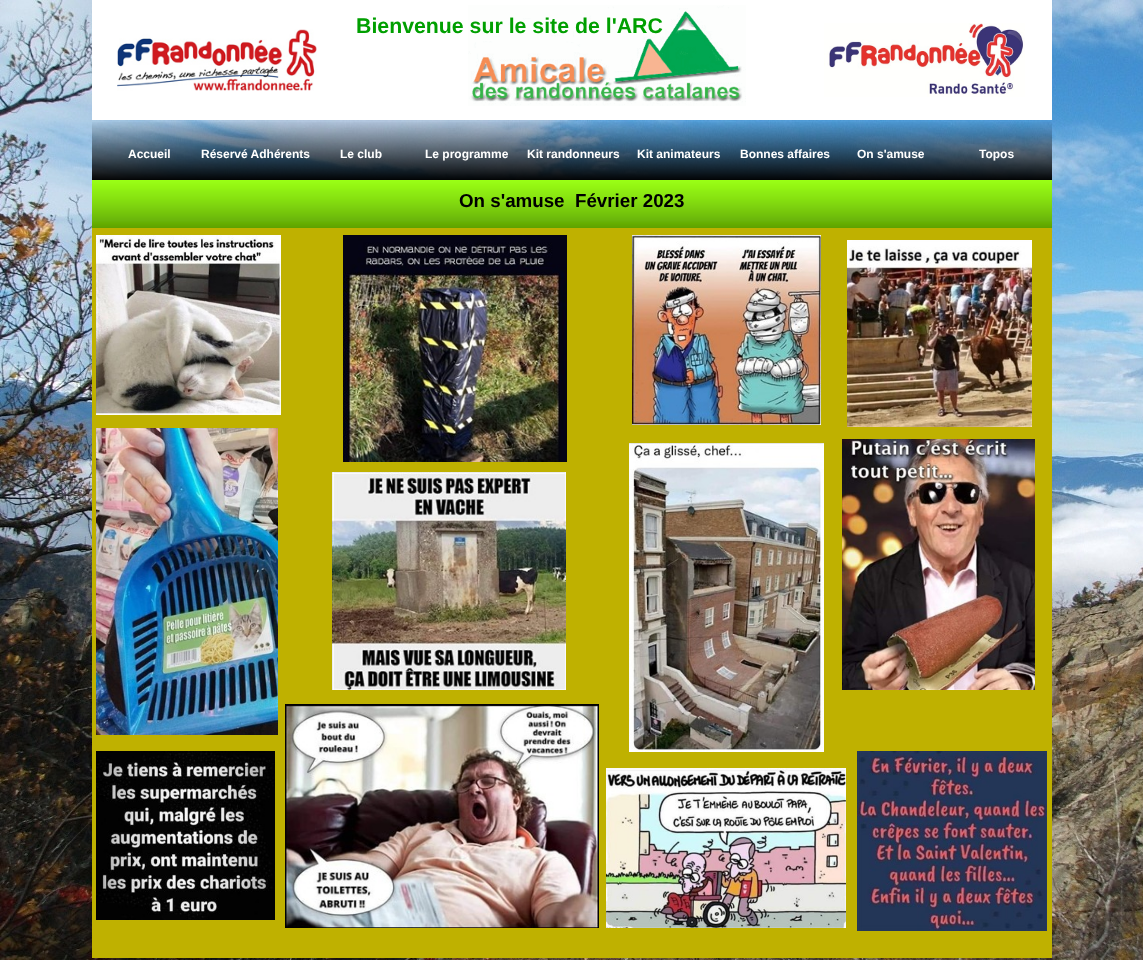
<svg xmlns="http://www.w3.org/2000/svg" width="1143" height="980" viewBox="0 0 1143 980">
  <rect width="100%" height="100%" fill="#ffffff"/>
  <image x="0" y="0" width="1143" height="960" href="img1.png"/>
  <rect x="92" y="0" width="960" height="120" fill="#ffffff"/>
  <image x="468" y="5" width="278" height="101" href="img2.png"/>
  <image x="117" y="29" width="200" height="62" href="img3.png"/>
  <text x="356" y="33" font-family="Liberation Sans" font-size="21.3" font-weight="bold" fill="#009f00">Bienvenue sur le site de l'ARC</text>
  <image x="824" y="23" width="201" height="74" href="img4.png"/>
  <image x="92" y="122" width="960" height="58" href="img5.png"/>
  <text x="128" y="158" font-family="Liberation Sans" font-size="12" font-weight="bold" fill="#ffffff">Accueil</text>
  <text x="201" y="158" font-family="Liberation Sans" font-size="12" font-weight="bold" fill="#ffffff">Réservé Adhérents</text>
  <text x="340" y="158" font-family="Liberation Sans" font-size="12" font-weight="bold" fill="#ffffff">Le club</text>
  <text x="425" y="158" font-family="Liberation Sans" font-size="12" font-weight="bold" fill="#ffffff">Le programme</text>
  <text x="527" y="158" font-family="Liberation Sans" font-size="12" font-weight="bold" fill="#ffffff">Kit randonneurs</text>
  <text x="637" y="158" font-family="Liberation Sans" font-size="12" font-weight="bold" fill="#ffffff">Kit animateurs</text>
  <text x="740" y="158" font-family="Liberation Sans" font-size="12" font-weight="bold" fill="#ffffff">Bonnes affaires</text>
  <text x="857" y="158" font-family="Liberation Sans" font-size="12" font-weight="bold" fill="#ffffff">On s'amuse</text>
  <text x="979" y="158" font-family="Liberation Sans" font-size="12" font-weight="bold" fill="#ffffff">Topos</text>
  <image x="92" y="180" width="960" height="48" href="img6.png"/>
  <text x="459" y="207" font-family="Liberation Sans" font-size="18.75" font-weight="bold" fill="#000000" xml:space="preserve">On s'amuse  Février 2023</text>
  <rect x="92" y="228" width="960" height="730" fill="#bfb100"/>
  <image x="343" y="235" width="224" height="227" href="img7.png"/>
  <image x="632" y="235" width="189" height="190" href="img8.png"/>
  <image x="847" y="240" width="185" height="187" href="img9.png"/>
  <image x="332" y="472" width="234" height="218" href="img10.png"/>
  <image x="629" y="443" width="195" height="309" href="img11.png"/>
  <image x="842" y="439" width="193" height="251" href="img12.png"/>
  <image x="96" y="751" width="179" height="169" href="img13.png"/>
  <image x="285" y="704" width="314" height="224" href="img14.png"/>
  <image x="606" y="768" width="240" height="160" href="img15.png"/>
  <image x="857" y="751" width="190" height="180" href="img16.png"/>
  <image x="96" y="235" width="185" height="180" href="img17.png"/>
  <image x="96" y="428" width="182" height="307" href="img18.png"/>
</svg>
